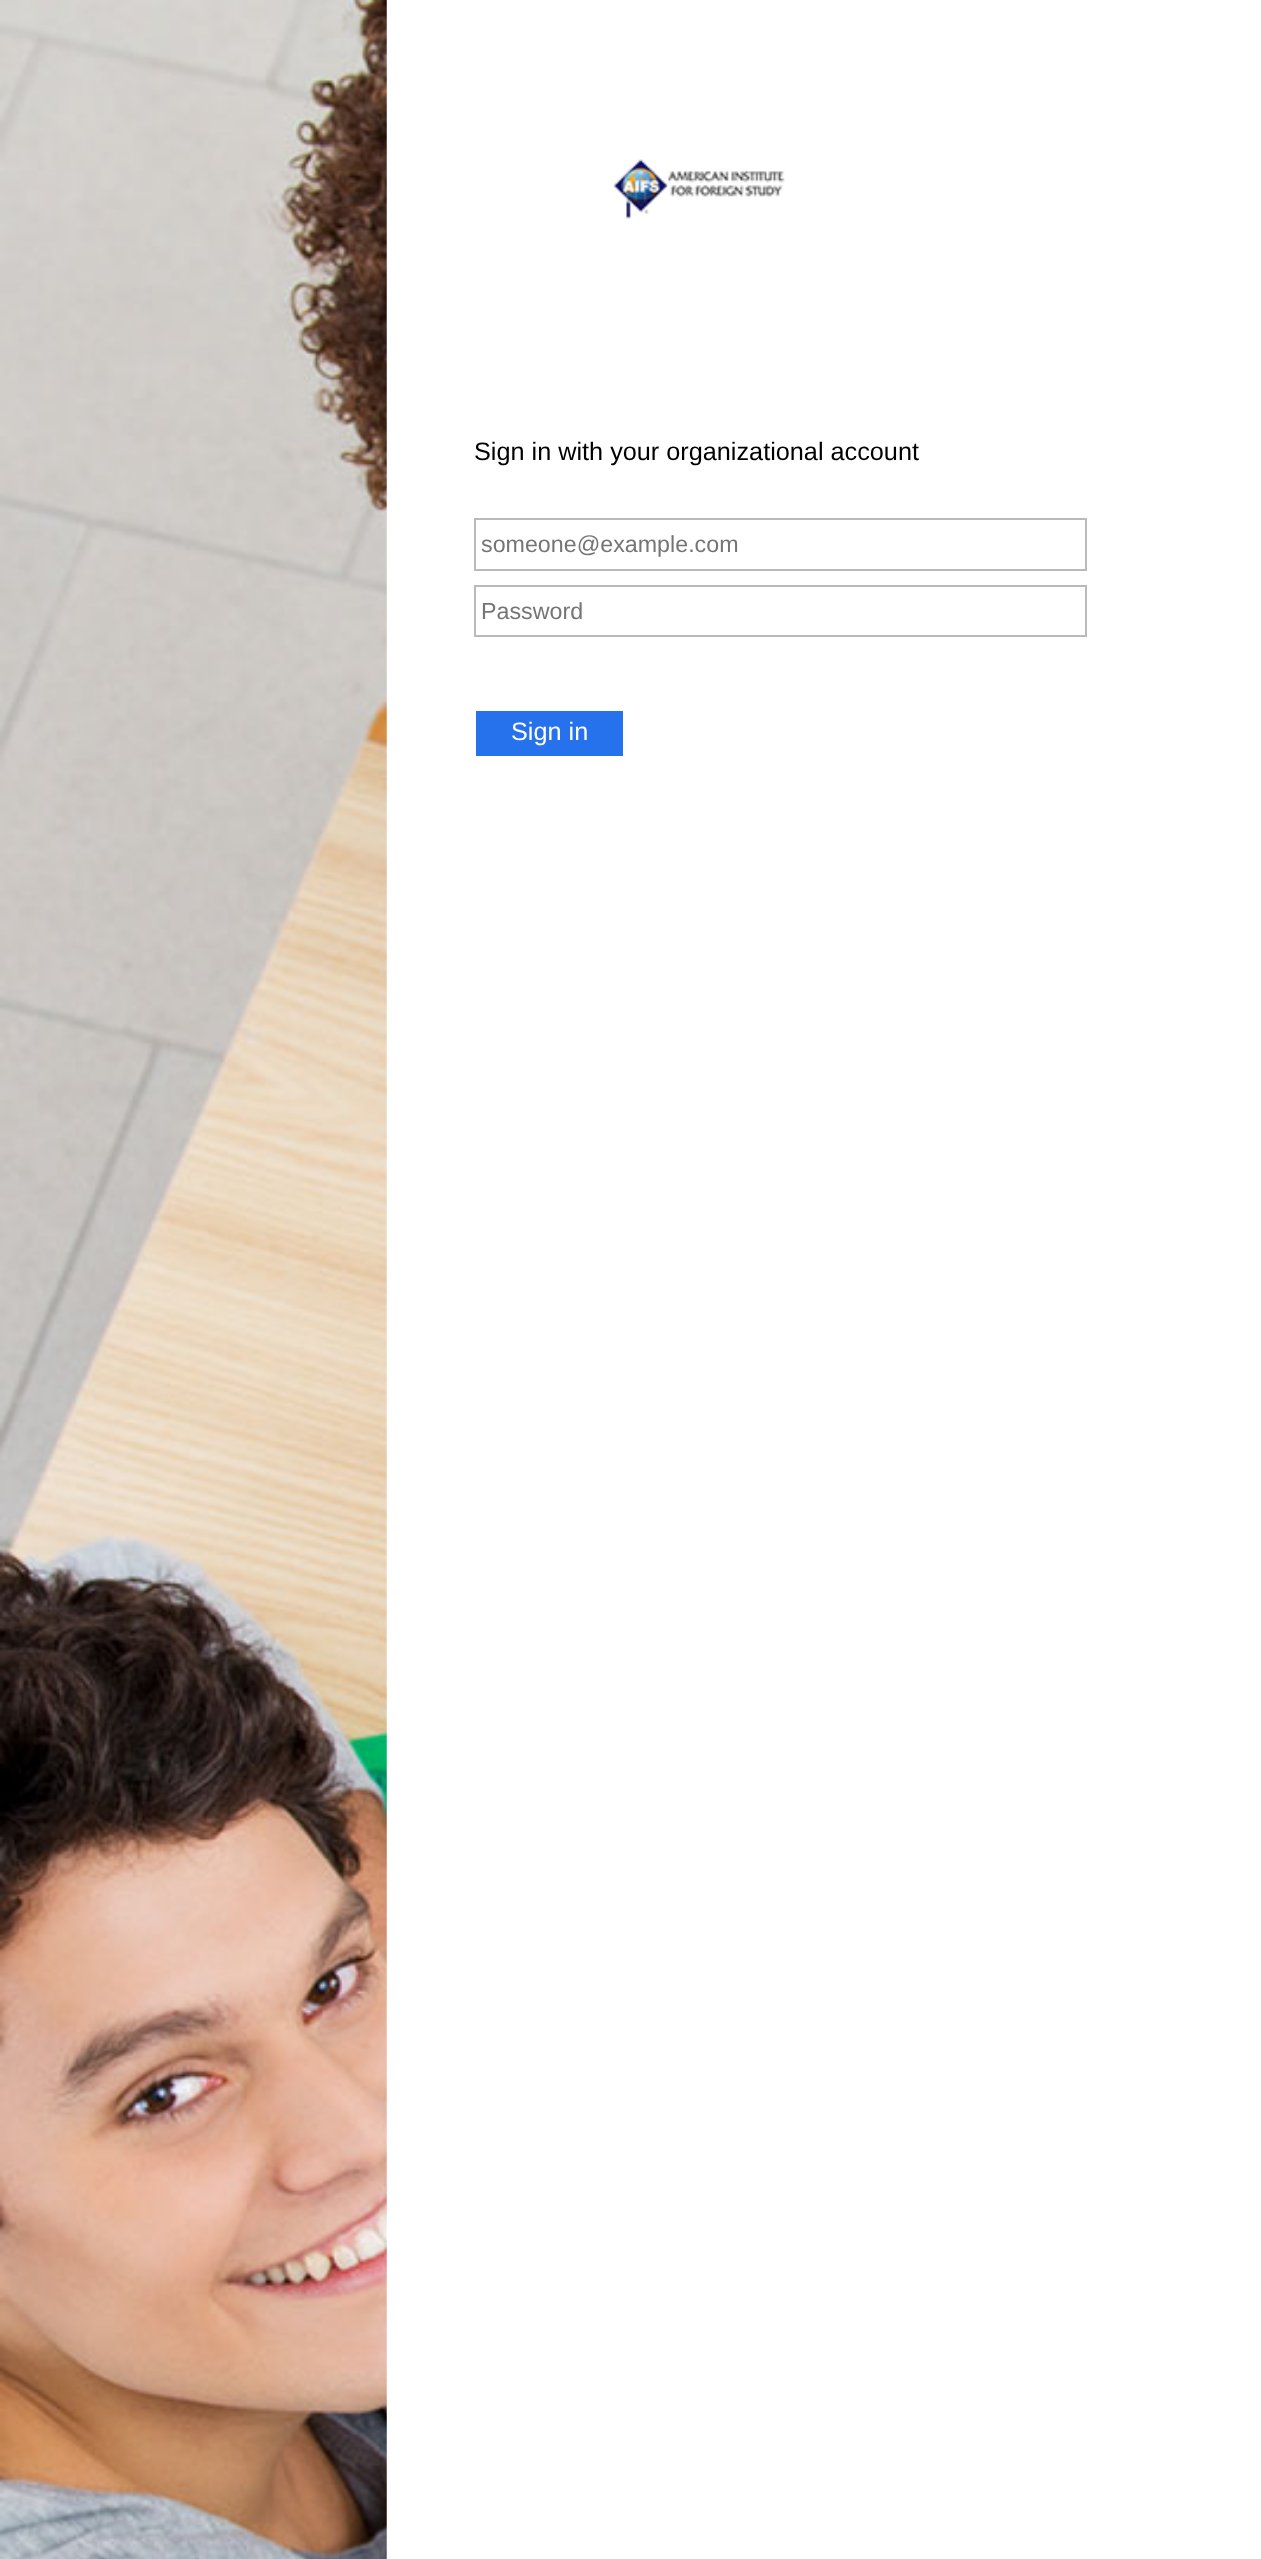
<svg xmlns="http://www.w3.org/2000/svg" width="1261" height="2559" viewBox="0 0 1261 2559">
  <rect width="100%" height="100%" fill="#ffffff"/>
  <image x="0" y="0" width="387" height="2559" href="img1.png"/>
  <image x="613" y="159" width="172" height="60" href="img2.png"/>
  <text x="474" y="460" font-family="Liberation Sans" font-size="25.25" fill="#000000">Sign in with your organizational account</text>
  <rect x="475" y="519" width="611" height="51" fill="none" stroke="#bababa" stroke-width="2"/>
  <text x="481" y="552" font-family="Liberation Sans" font-size="23.25" fill="#757575">someone@example.com</text>
  <rect x="475" y="586" width="611" height="50" fill="none" stroke="#bababa" stroke-width="2"/>
  <text x="481" y="619" font-family="Liberation Sans" font-size="23.25" fill="#757575">Password</text>
  <rect x="476" y="711" width="147" height="45" fill="#2672ec"/>
  <text x="511" y="740" font-family="Liberation Sans" font-size="25.25" fill="#ffffff">Sign in</text>
</svg>
